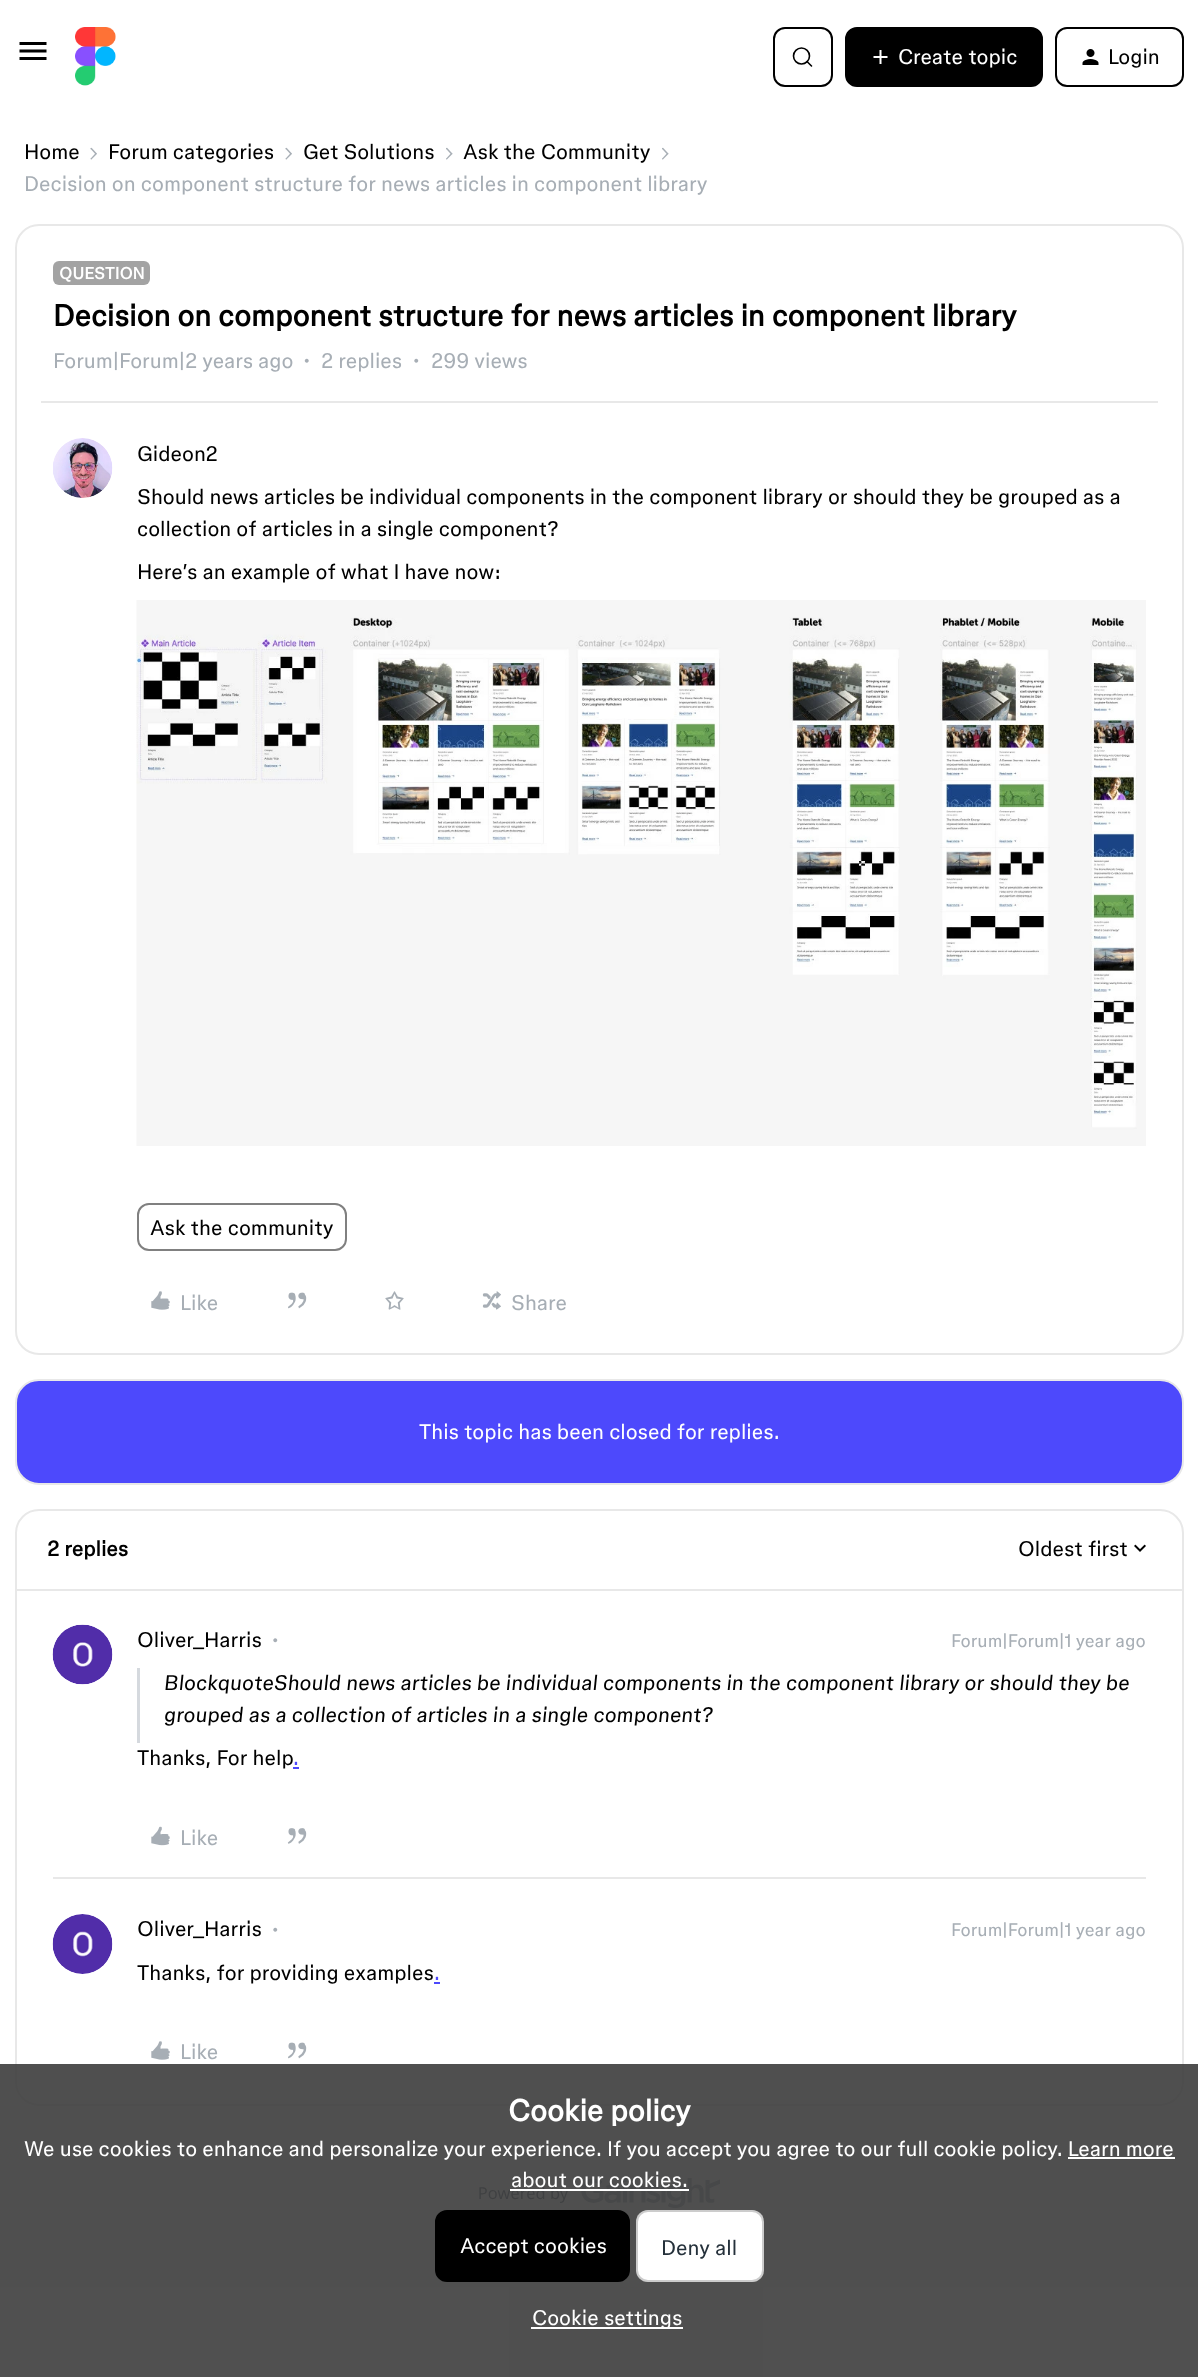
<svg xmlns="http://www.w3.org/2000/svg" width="1198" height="2377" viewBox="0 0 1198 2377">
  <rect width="100%" height="100%" fill="#ffffff"/>
  <image x="19" y="42" width="28" height="18" href="img1.png"/>
  <image x="75" y="27" width="41" height="59" href="img2.png"/>
  <rect x="774" y="28" width="58" height="58" rx="11" fill="none" stroke="#000000" stroke-width="2"/>
  <circle cx="801.5" cy="56" r="8" fill="none" stroke="#000000" stroke-width="1.6"/>
  <path d="M807 61.5L811.5 66" fill="none" stroke="#000000" stroke-width="1.6" stroke-linecap="round"/>
  <rect x="846" y="28" width="196" height="58" rx="11" fill="#000000" stroke="#000000" stroke-width="2"/>
  <image x="873" y="50" width="15" height="14" href="img3.png"/>
  <text x="898" y="64" font-family="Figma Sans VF" font-size="21" fill="#ffffff">Create topic</text>
  <rect x="1056" y="28" width="127" height="58" rx="11" fill="none" stroke="#000000" stroke-width="2"/>
  <image x="1082" y="49" width="17" height="16" href="img4.png"/>
  <text x="1108" y="64" font-family="Figma Sans VF" font-size="21" fill="#000000">Login</text>
  <text x="24" y="159" font-family="Figma Sans VF" font-size="21" fill="#000000">Home</text>
  <image x="90" y="147" width="7" height="13" href="img5.png"/>
  <text x="108" y="159" font-family="Figma Sans VF" font-size="21" fill="#000000">Forum categories</text>
  <image x="285" y="147" width="7" height="13" href="img5.png"/>
  <text x="303" y="159" font-family="Figma Sans VF" font-size="21" fill="#000000">Get Solutions</text>
  <image x="446" y="147" width="7" height="13" href="img6.png"/>
  <text x="463" y="159" font-family="Figma Sans VF" font-size="21" fill="#000000">Ask the Community</text>
  <image x="662" y="147" width="7" height="13" href="img6.png"/>
  <text x="24" y="191" font-family="Figma Sans VF" font-size="21" fill="#a7aeb5">Decision on component structure for news articles in component library</text>
  <rect x="16" y="225" width="1167" height="1129" rx="23" fill="none" stroke="#e8e8e8" stroke-width="2"/>
  <rect x="53" y="261" width="97" height="24" rx="6" fill="#a3a3a3"/>
  <text x="59" y="279" font-family="Figma Sans VF" font-size="16.5" font-weight="bold" fill="#ffffff">QUESTION</text>
  <text x="53" y="326" font-family="'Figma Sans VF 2'" font-size="30" font-weight="bold" fill="#000000">Decision on component structure for news articles in component library</text>
  <text x="53" y="368" font-family="Figma Sans VF" font-size="21" fill="#a7aeb5">Forum|Forum|2 years ago</text>
  <image x="304" y="358" width="5" height="5" href="img7.png"/>
  <text x="321" y="368" font-family="Figma Sans VF" font-size="21" fill="#a7aeb5">2 replies</text>
  <image x="414" y="358" width="5" height="5" href="img8.png"/>
  <text x="431" y="368" font-family="Figma Sans VF" font-size="21" fill="#a7aeb5">299 views</text>
  <rect x="41" y="401" width="1117" height="2" fill="#e8e8e8"/>
  <image x="53" y="438" width="60" height="60" href="img9.png"/>
  <text x="137" y="461" font-family="Figma Sans VF" font-size="21" fill="#000000">Gideon2</text>
  <text x="137" y="504" font-family="Figma Sans VF" font-size="21" fill="#000000">Should news articles be individual components in the component library or should they be grouped as a</text>
  <text x="137" y="536" font-family="Figma Sans VF" font-size="21" fill="#000000">collection of articles in a single component?</text>
  <text x="137" y="579" font-family="Figma Sans VF" font-size="21" fill="#000000">Here’s an example of what I have now:</text>
  <image x="136" y="600" width="1010" height="546" href="img10.png"/>
  <rect x="138" y="1204" width="208" height="46" rx="11" fill="none" stroke="#808080" stroke-width="2"/>
  <text x="150" y="1235" font-family="Figma Sans VF" font-size="21" fill="#000000">Ask the community</text>
  <image x="151" y="1291" width="19" height="19" href="img11.png"/>
  <text x="180" y="1310" font-family="Figma Sans VF" font-size="21" fill="#a7aeb5">Like</text>
  <image x="288" y="1292" width="19" height="17" href="img12.png"/>
  <image x="385" y="1291" width="19" height="19" href="img13.png"/>
  <image x="482" y="1291" width="19" height="19" href="img14.png"/>
  <text x="511" y="1310" font-family="Figma Sans VF" font-size="21" fill="#a7aeb5">Share</text>
  <rect x="16" y="1380" width="1167" height="104" rx="23" fill="#4d49fc" stroke="#e8e8e8" stroke-width="2"/>
  <text x="419" y="1439" font-family="Figma Sans VF" font-size="21" fill="#ffffff">This topic has been closed for replies.</text>
  <rect x="16" y="1510" width="1167" height="595" rx="23" fill="none" stroke="#e8e8e8" stroke-width="2"/>
  <rect x="17" y="1589" width="1165" height="2" fill="#e8e8e8"/>
  <text x="47" y="1556" font-family="'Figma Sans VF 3'" font-size="21" font-weight="bold" fill="#000000">2 replies</text>
  <text x="1018" y="1556" font-family="Figma Sans VF" font-size="21" fill="#000000">Oldest first</text>
  <image x="1134" y="1544" width="12" height="8" href="img15.png"/>
  <image x="52" y="1624" width="61" height="61" href="img16.png"/>
  <text x="137" y="1647" font-family="Figma Sans VF" font-size="21" fill="#000000">Oliver_Harris</text>
  <image x="273" y="1638" width="5" height="5" href="img17.png"/>
  <text x="951" y="1647" font-family="'Figma Sans VF 2'" font-size="18" fill="#a7aeb5">Forum|Forum|1 year ago</text>
  <rect x="137" y="1668" width="3" height="75" fill="#d5d9de"/>
  <text x="164" y="1690" font-family="Figma Sans VF" font-size="21" font-style="italic" fill="#000000">BlockquoteShould news articles be individual components in the component library or should they be</text>
  <text x="164" y="1722" font-family="Figma Sans VF" font-size="21" font-style="italic" fill="#000000">grouped as a collection of articles in a single component?</text>
  <text x="137" y="1765" font-family="Figma Sans VF" font-size="21" fill="#000000">Thanks, For help</text>
  <text x="293" y="1765" font-family="Figma Sans VF" font-size="21" fill="#4d49fc">.</text>
  <rect x="293" y="1767" width="6" height="2" fill="#4d49fc"/>
  <image x="151" y="1826" width="19" height="20" href="img18.png"/>
  <text x="180" y="1845" font-family="Figma Sans VF" font-size="21" fill="#a7aeb5">Like</text>
  <image x="287" y="1828" width="20" height="16" href="img19.png"/>
  <rect x="53" y="1877" width="1093" height="2" fill="#e8e8e8"/>
  <image x="52" y="1914" width="61" height="60" href="img20.png"/>
  <text x="137" y="1936" font-family="Figma Sans VF" font-size="21" fill="#000000">Oliver_Harris</text>
  <image x="273" y="1927" width="5" height="5" href="img8.png"/>
  <text x="951" y="1936" font-family="'Figma Sans VF 2'" font-size="18" fill="#a7aeb5">Forum|Forum|1 year ago</text>
  <text x="137" y="1980" font-family="Figma Sans VF" font-size="21" fill="#000000">Thanks, for providing examples</text>
  <text x="434" y="1980" font-family="Figma Sans VF" font-size="21" fill="#4d49fc">.</text>
  <rect x="434" y="1982" width="6" height="2" fill="#4d49fc"/>
  <image x="151" y="2041" width="19" height="19" href="img11.png"/>
  <text x="180" y="2059" font-family="Figma Sans VF" font-size="21" fill="#a7aeb5">Like</text>
  <image x="288" y="2042" width="19" height="17" href="img12.png"/>
  <image x="479" y="2178" width="241" height="30" href="img21.png"/>
  <rect x="0" y="2064" width="1198" height="313" fill="#3c3c3c" fill-opacity="0.9"/>
  <text x="508" y="2121" font-family="'Figma Sans VF 2'" font-size="30" font-weight="bold" fill="#ffffff">Cookie policy</text>
  <text x="24" y="2156" font-family="Figma Sans VF" font-size="21" fill="#ffffff">We use cookies to enhance and personalize your experience. If you accept you agree to our full cookie policy. Learn more</text>
  <rect x="1068" y="2157" width="107" height="2" fill="#ffffff"/>
  <text x="511" y="2187" font-family="Figma Sans VF" font-size="21" fill="#ffffff">about our cookies.</text>
  <rect x="510" y="2189" width="179" height="2" fill="#ffffff"/>
  <rect x="436" y="2211" width="193" height="70" rx="11" fill="#000000" stroke="#000000" stroke-width="2"/>
  <text x="460" y="2253" font-family="Figma Sans VF" font-size="21" fill="#ffffff">Accept cookies</text>
  <rect x="636" y="2210" width="128" height="72" rx="12" fill="#ffffff"/>
  <rect x="637" y="2211" width="126" height="70" rx="11" fill="none" stroke="#000000" stroke-opacity="0.2" stroke-width="2"/>
  <text x="661" y="2255" font-family="Figma Sans VF" font-size="21" fill="#25313b">Deny all</text>
  <rect x="531" y="2327" width="152" height="2" fill="#ffffff"/>
  <text x="532" y="2325" font-family="Figma Sans VF" font-size="21" fill="#ffffff">Cookie settings</text>
</svg>
